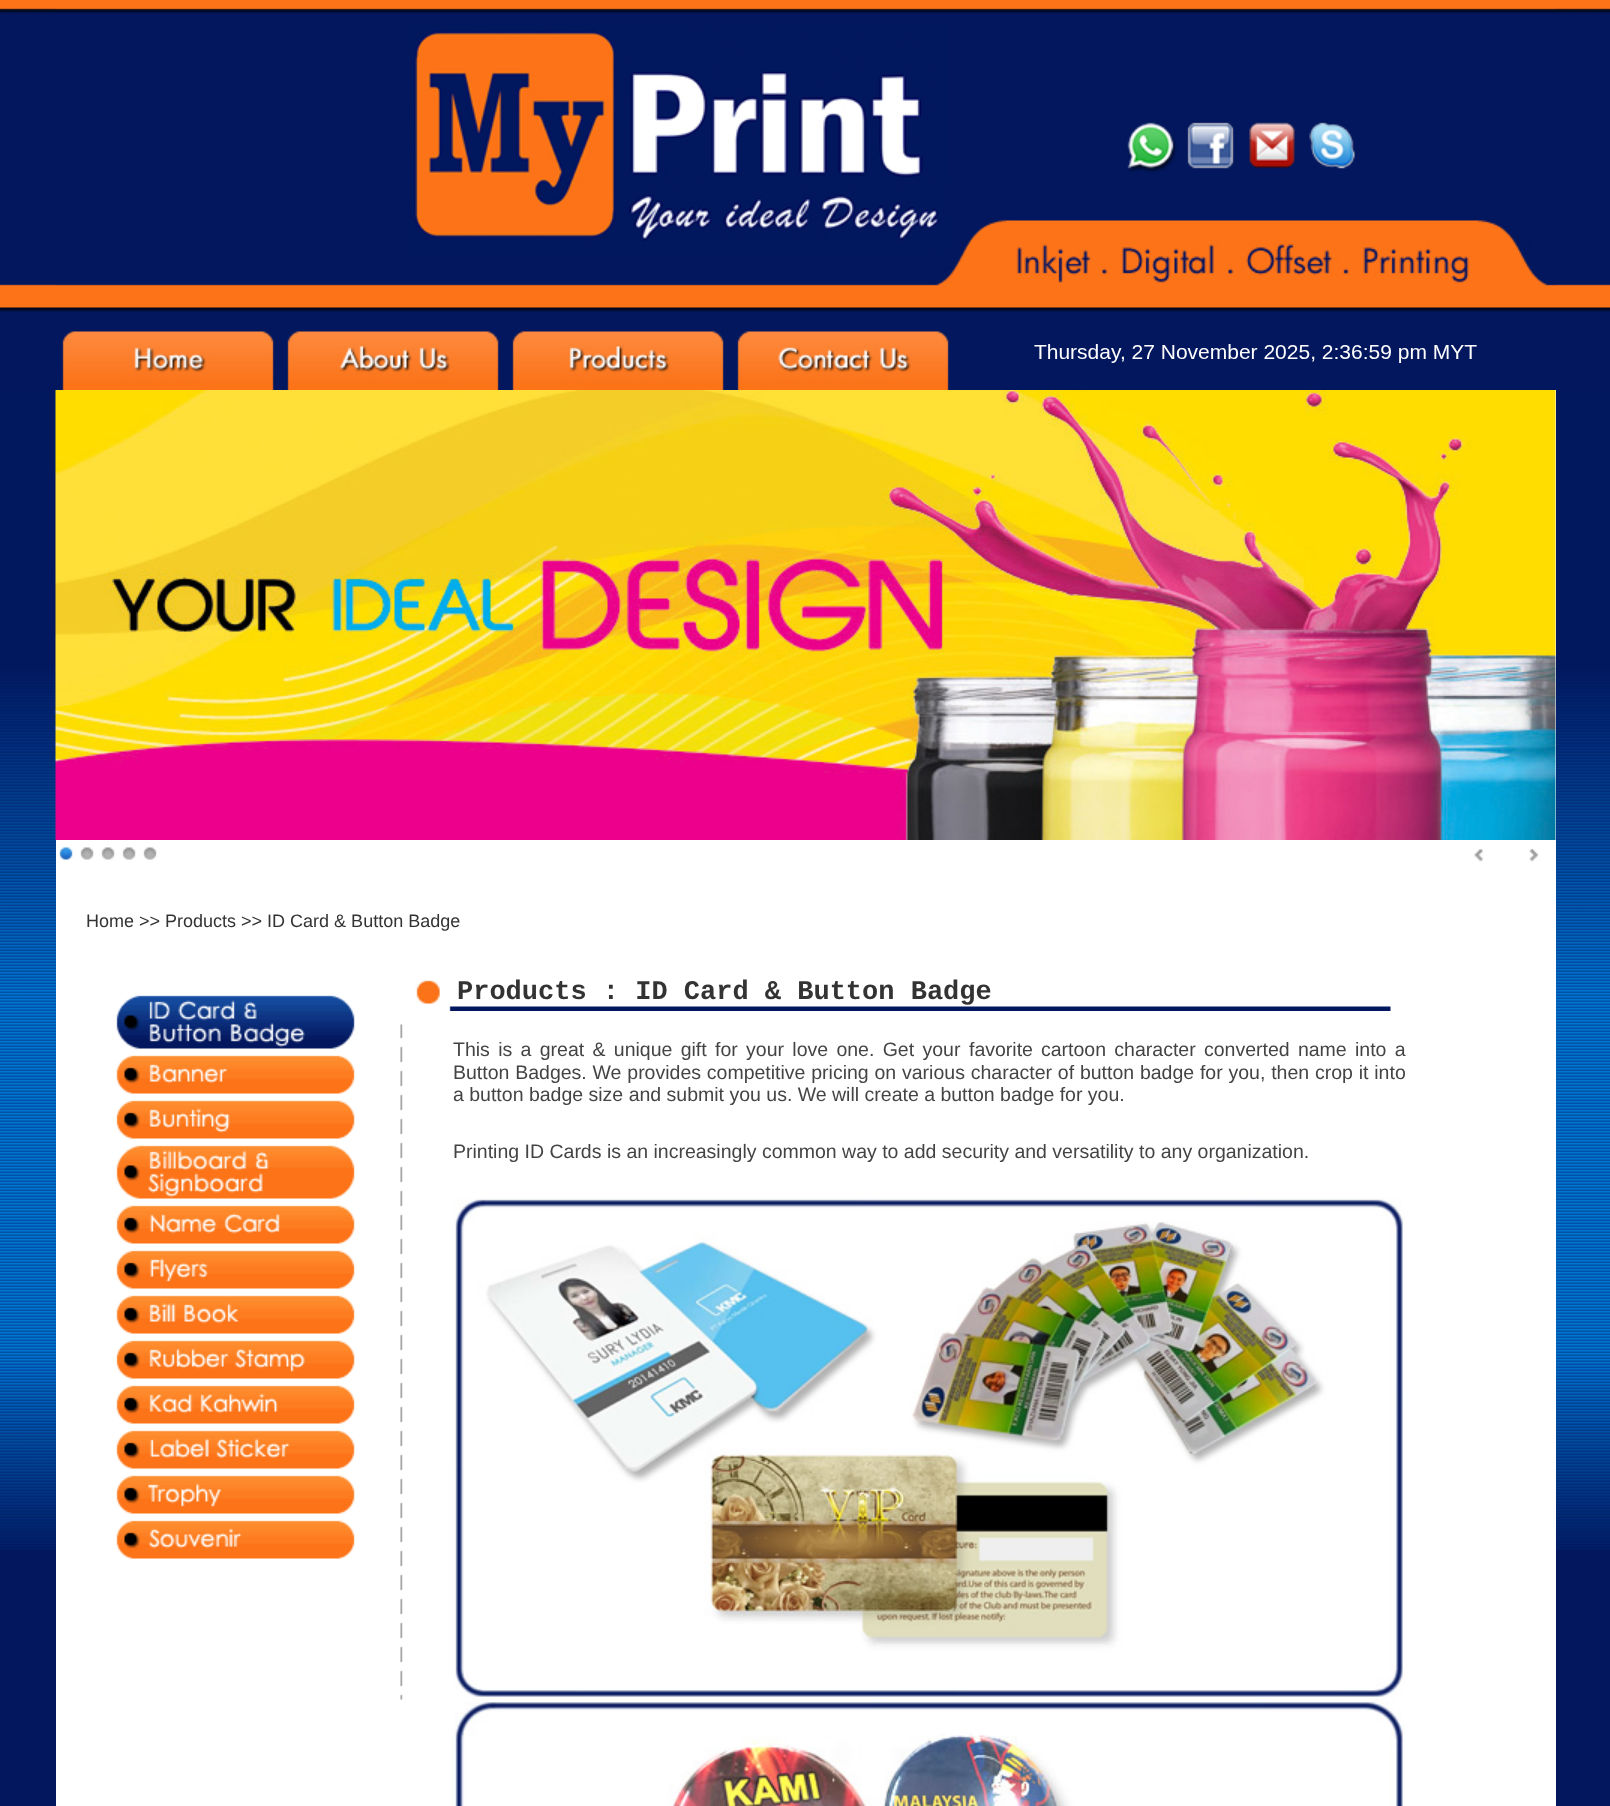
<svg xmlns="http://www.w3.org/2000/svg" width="1610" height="1806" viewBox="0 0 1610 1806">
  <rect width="100%" height="100%" fill="#02175e"/>
  <image x="0" y="0" width="1610" height="1550" href="img1.png"/>
  <image x="55" y="8" width="1501" height="278" href="img2.png"/>
  <image x="62" y="331" width="212" height="59" href="img3.png"/>
  <image x="287" y="331" width="212" height="59" href="img4.png"/>
  <image x="512" y="331" width="212" height="59" href="img5.png"/>
  <image x="737" y="331" width="212" height="59" href="img6.png"/>
  <image x="1034" y="344" width="443" height="19" href="img7.png"/>
  <rect x="56" y="390" width="1500" height="1416" fill="#ffffff"/>
  <image x="55" y="390" width="1501" height="450" href="img8.png"/>
  <image x="1474" y="849" width="10" height="13" href="img9.png"/>
  <image x="1529" y="849" width="10" height="13" href="img10.png"/>
  <image x="59" y="847" width="14" height="13" href="img11.png"/>
  <image x="80" y="847" width="14" height="13" href="img12.png"/>
  <image x="101" y="847" width="14" height="13" href="img12.png"/>
  <image x="122" y="847" width="14" height="13" href="img12.png"/>
  <image x="143" y="847" width="14" height="13" href="img12.png"/>
  <text x="86" y="927" font-family="Liberation Sans" font-size="18" fill="#333333">Home &gt;&gt; Products &gt;&gt; ID Card &amp; Button Badge</text>
  <image x="400" y="1024" width="3" height="676" href="img13.png"/>
  <image x="116" y="995" width="239" height="54" href="img14.png"/>
  <image x="116" y="1055" width="239" height="39" href="img15.png"/>
  <image x="116" y="1100" width="239" height="39" href="img16.png"/>
  <image x="116" y="1145" width="239" height="54" href="img17.png"/>
  <image x="116" y="1205" width="239" height="39" href="img18.png"/>
  <image x="116" y="1250" width="239" height="39" href="img19.png"/>
  <image x="116" y="1295" width="239" height="39" href="img20.png"/>
  <image x="116" y="1340" width="239" height="39" href="img21.png"/>
  <image x="116" y="1385" width="239" height="39" href="img22.png"/>
  <image x="116" y="1430" width="239" height="39" href="img23.png"/>
  <image x="116" y="1475" width="239" height="39" href="img24.png"/>
  <image x="116" y="1520" width="239" height="39" href="img25.png"/>
  <image x="415" y="979" width="25" height="25" href="img26.png"/>
  <text x="457" y="999" font-family="Liberation Mono" font-size="27" font-weight="bold" fill="#333333">Products : ID Card &amp; Button Badge</text>
  <image x="449" y="1006" width="942" height="5" href="img27.png"/>
  <text x="453" y="1056" word-spacing="2.9" font-family="Liberation Sans" font-size="19.5" fill="#444444">This is a great &amp; unique gift for your love one. Get your</text>
  <text x="969" y="1056" font-family="Liberation Sans" font-size="19.5" fill="#444444">favorite</text>
  <text x="1041" y="1056" word-spacing="2.9" font-family="Liberation Sans" font-size="19.5" fill="#444444">cartoon character converted name into a</text>
  <text x="453" y="1079" word-spacing="0.4" font-family="Liberation Sans" font-size="19.5" fill="#444444">Button Badges. We provides competitive pricing on various character of button badge for you, then crop it into</text>
  <text x="453" y="1101" font-family="Liberation Sans" font-size="19.5" fill="#444444">a button badge size and submit you us. We will create a button badge for you.</text>
  <text x="453" y="1158" font-family="Liberation Sans" font-size="19.5" fill="#444444">Printing ID Cards is an increasingly common way to add security and versatility to any organization.</text>
  <image x="453" y="1197" width="952" height="502" href="img28.png"/>
  <image x="453" y="1699" width="952" height="107" href="img29.png"/>
</svg>
